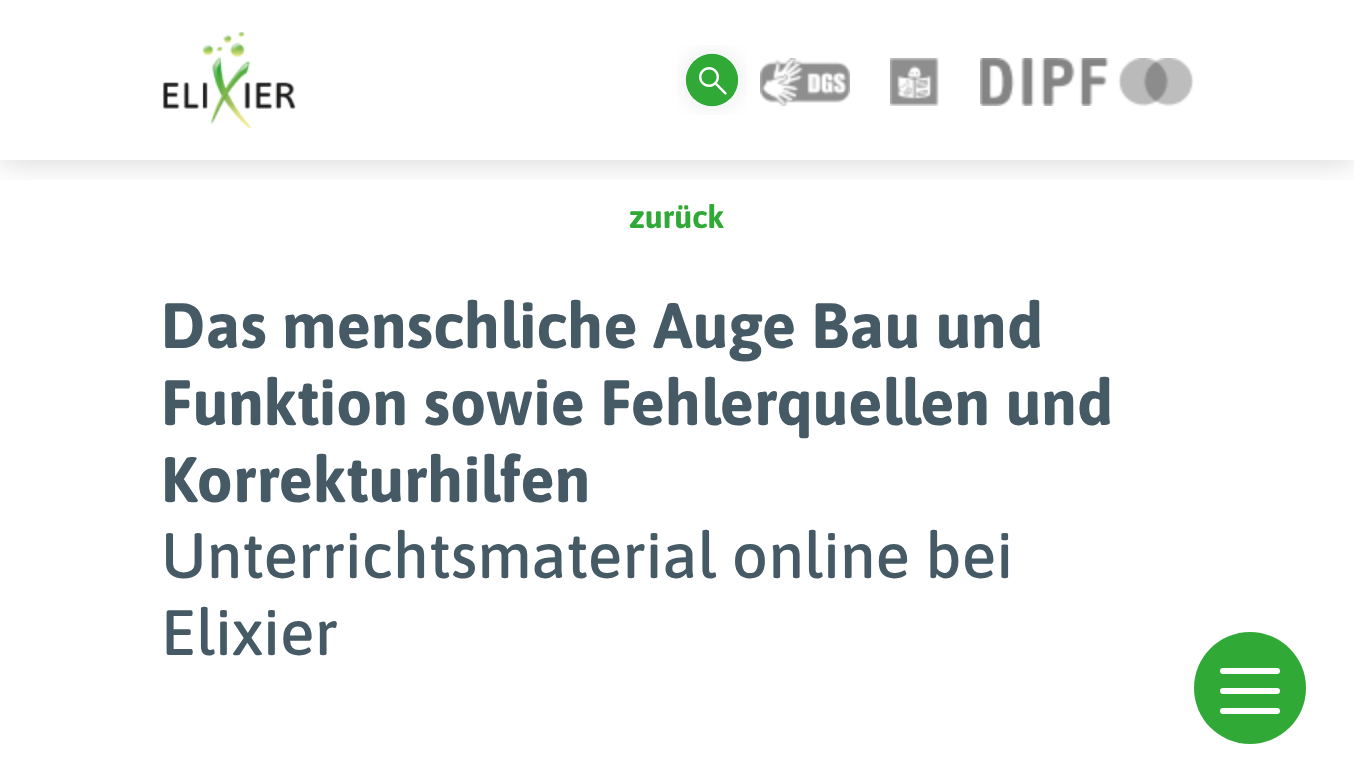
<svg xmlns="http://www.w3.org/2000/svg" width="1354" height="779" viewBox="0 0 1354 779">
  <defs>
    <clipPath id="clip1"><rect x="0" y="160" width="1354" height="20"/></clipPath>
    <filter id="blur1" x="-50%" y="-200%" width="200%" height="500%"><feGaussianBlur stdDeviation="16"/></filter>
  </defs>
  <rect width="100%" height="100%" fill="#ffffff"/>
  <g clip-path="url(#clip1)">
    <rect x="0" y="2" width="1354" height="160" fill="#121212" fill-opacity="0.16" filter="url(#blur1)"/>
  </g>
  <image x="162" y="32" width="134" height="96" href="img1.png"/>
  <image x="677" y="45" width="70" height="70" href="img2.png"/>
  <image x="760" y="58" width="90" height="48" href="img3.png"/>
  <image x="890" y="58" width="49" height="48" href="img4.png"/>
  <image x="980" y="58" width="214" height="48" href="img5.png"/>
  <text x="629" y="228" font-family="Asap" font-size="32" font-weight="bold" fill="#30a936">zurück</text>
  <text x="161" y="348" font-family="Asap" font-size="64" font-weight="bold" fill="#455a64">Das menschliche Auge Bau und</text>
  <text x="161" y="425" font-family="Asap" font-size="64" font-weight="bold" fill="#455a64">Funktion sowie Fehlerquellen und</text>
  <text x="161" y="502" font-family="Asap" font-size="64" font-weight="bold" fill="#455a64">Korrekturhilfen</text>
  <text x="161" y="578" font-family="Asap" font-size="64" font-weight="500" fill="#455a64">Unterrichtsmaterial online bei</text>
  <text x="161" y="655" font-family="Asap" font-size="64" font-weight="500" fill="#455a64">Elixier</text>
  <circle cx="1250" cy="688" r="56" fill="#30a936"/>
  <rect x="1220" y="688" width="60" height="6" rx="3" fill="#ffffff"/>
  <rect x="1220" y="668" width="60" height="6" rx="3" fill="#ffffff"/>
  <rect x="1220" y="708" width="60" height="6" rx="3" fill="#ffffff"/>
</svg>
